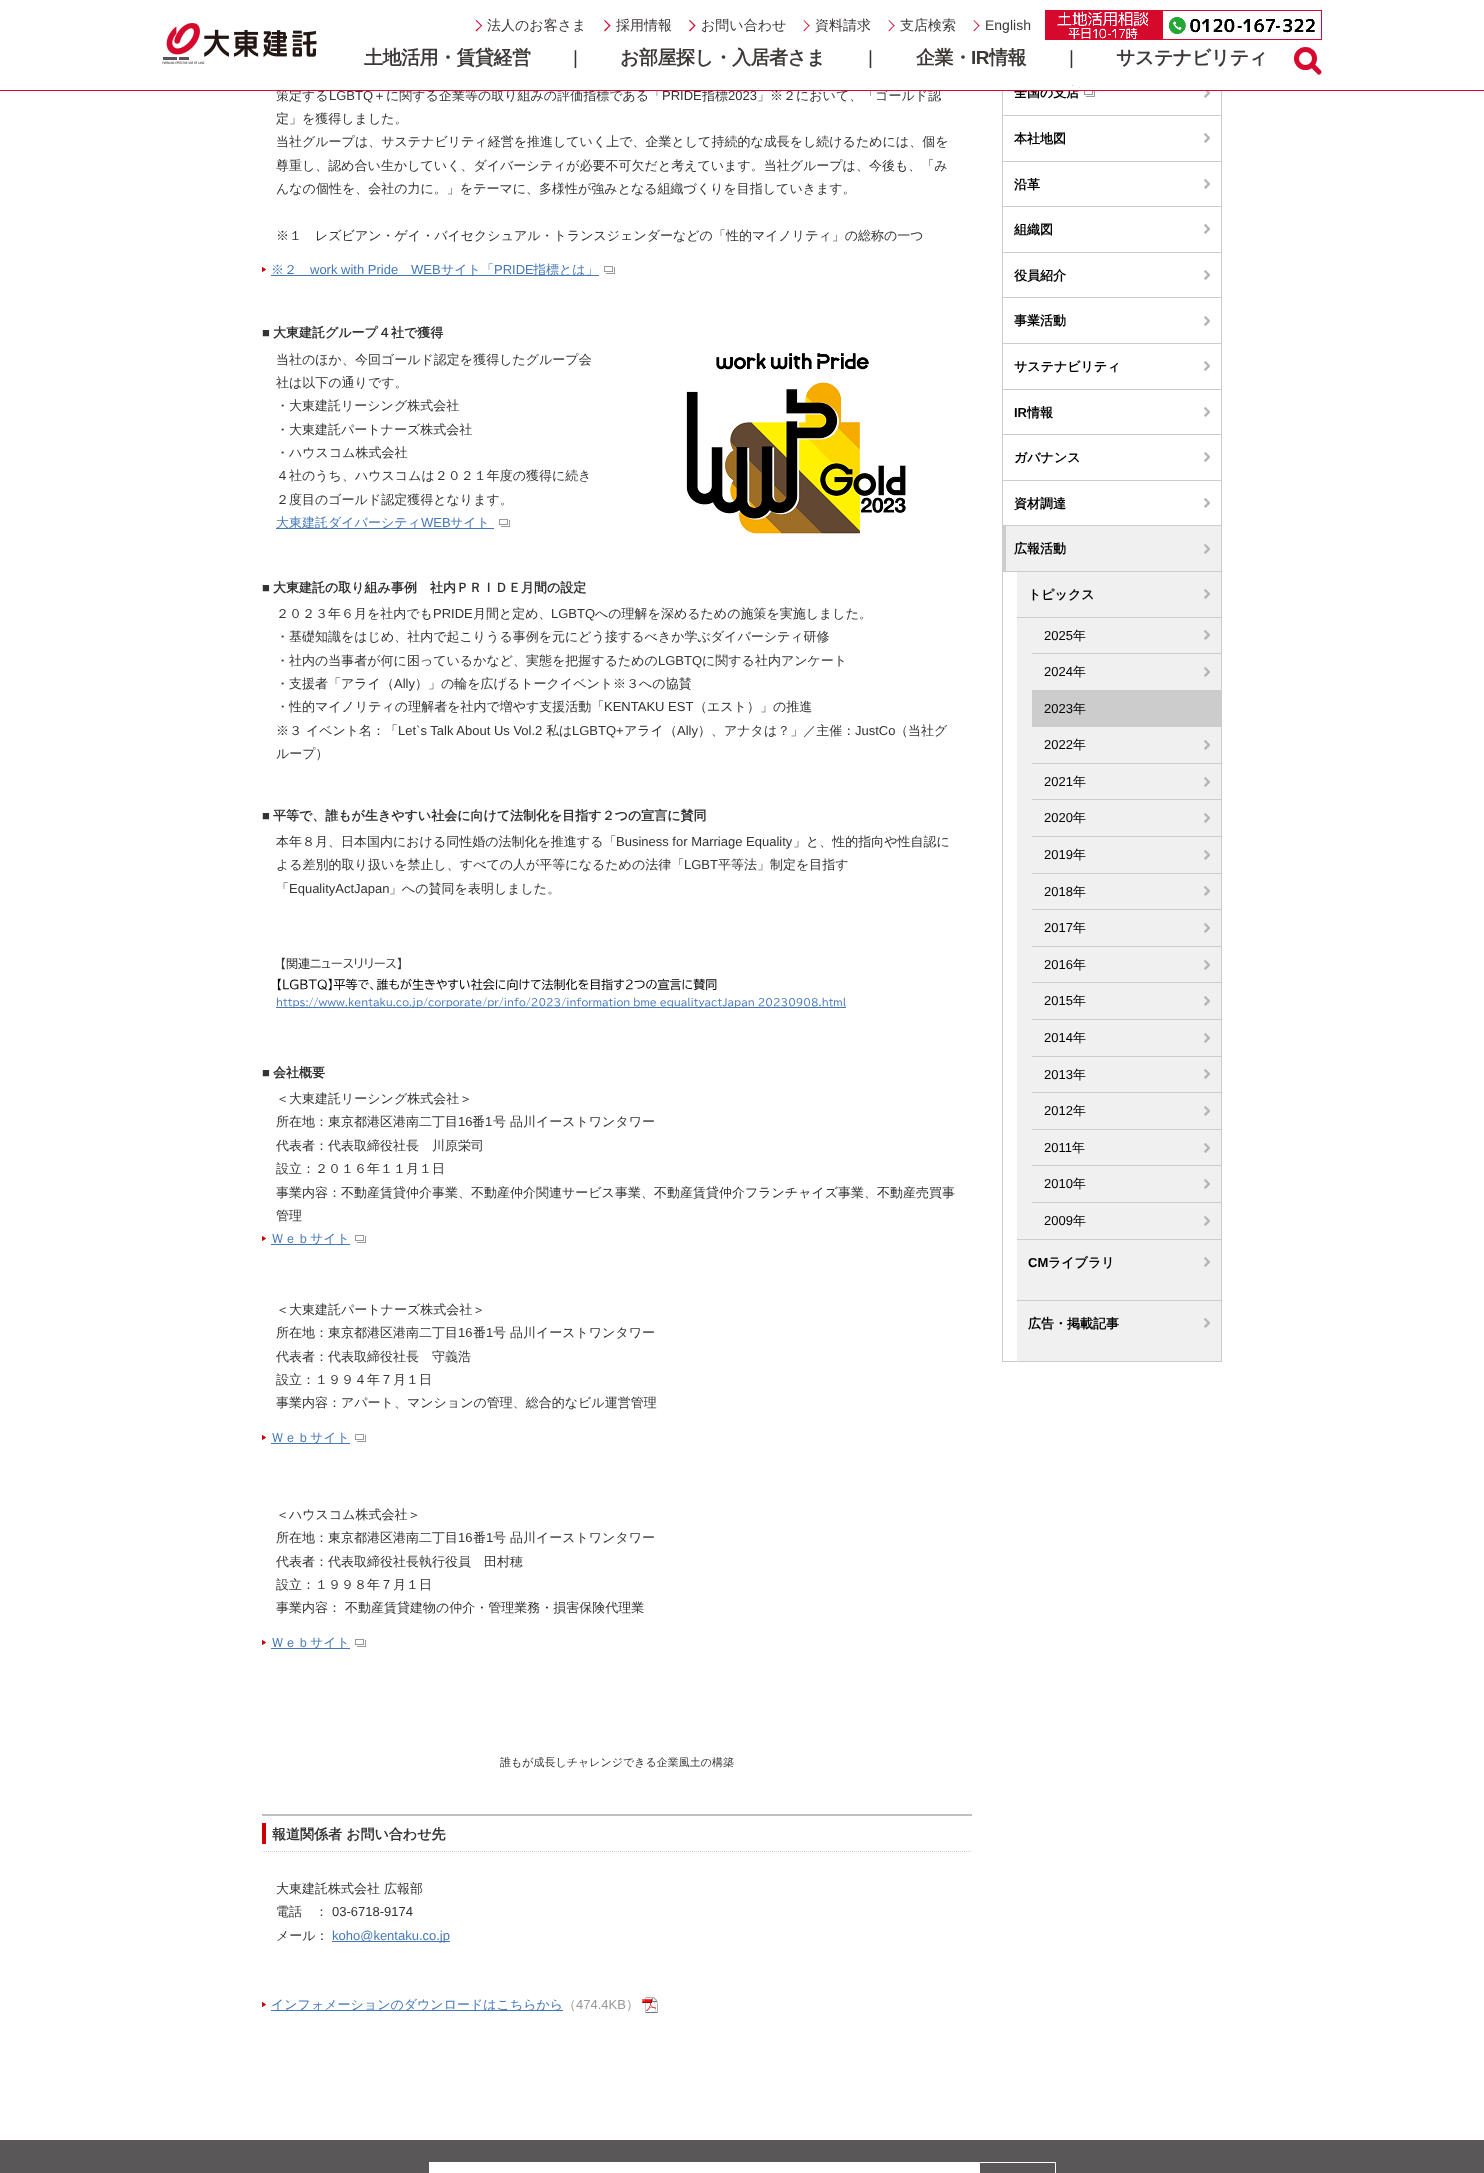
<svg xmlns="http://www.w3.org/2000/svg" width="1484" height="2173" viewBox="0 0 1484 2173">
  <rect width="100%" height="100%" fill="#ffffff"/>
  <text x="276" y="100" font-family="WenQuanYi Zen Hei" font-size="13" font-weight="500" fill="#333333">策定する</text>
  <text x="373" y="100" font-family="WenQuanYi Zen Hei" font-size="13" font-weight="500" fill="#333333">＋に関する企業等の取り組みの評価指標である「</text>
  <text x="662" y="100" font-family="Liberation Sans" font-size="13" fill="#333333">PRIDE</text>
  <text x="702" y="100" font-family="WenQuanYi Zen Hei" font-size="13" font-weight="500" fill="#333333">指標</text>
  <text x="757" y="100" font-family="WenQuanYi Zen Hei" font-size="13" font-weight="500" fill="#333333">」※２において、「ゴールド認</text>
  <text x="1014" y="97" font-family="WenQuanYi Zen Hei" font-size="13" font-weight="bold" fill="#000000">全国の支店</text>
  <rect x="278" y="86" width="801" height="4" fill="#ffffff"/>
  <text x="329" y="100" font-family="Liberation Sans" font-size="13" fill="#333333">LGBTQ</text>
  <text x="728" y="100" font-family="Liberation Sans" font-size="13" fill="#333333">2023</text>
  <rect x="0" y="90" width="1484" height="1" fill="#d6082e"/>
  <image x="162" y="23" width="155" height="41" href="img1.png"/>
  <path d="M475.5 20.5L476.5 20L482 25.5L481.5 26.5Z" fill="#d6082e"/>
  <path d="M475.5 30.5L481.5 25L482 25.5L476.5 31.5Z" fill="#d6082e"/>
  <text x="487" y="30" font-family="WenQuanYi Zen Hei" font-size="14" font-weight="500" fill="#3e3939">法人のお客さま</text>
  <path d="M604 20.5L605 20L610.5 25.5L609.5 26.5Z" fill="#d6082e"/>
  <path d="M604 30.5L609.5 25L610.5 25.5L605 31.5Z" fill="#d6082e"/>
  <text x="616" y="30" font-family="WenQuanYi Zen Hei" font-size="14" font-weight="500" fill="#3e3939">採用情報</text>
  <path d="M689 20.5L690 20L695.5 25.5L694.5 26.5Z" fill="#d6082e"/>
  <path d="M689 30.5L694.5 25L695.5 25.5L690 31.5Z" fill="#d6082e"/>
  <text x="701" y="30" font-family="WenQuanYi Zen Hei" font-size="14" font-weight="500" fill="#3e3939">お問い合わせ</text>
  <path d="M803.5 20.5L804 20L809.5 25.5L809 26.5Z" fill="#d6082e"/>
  <path d="M803.5 30.5L809 25L809.5 25.5L804 31.5Z" fill="#d6082e"/>
  <text x="815" y="30" font-family="WenQuanYi Zen Hei" font-size="14" font-weight="500" fill="#3e3939">資料請求</text>
  <path d="M888.5 20.5L889 20L894.5 25.5L894 26.5Z" fill="#d6082e"/>
  <path d="M888.5 30.5L894 25L894.5 25.5L889 31.5Z" fill="#d6082e"/>
  <text x="900" y="30" font-family="WenQuanYi Zen Hei" font-size="14" font-weight="500" fill="#3e3939">支店検索</text>
  <path d="M973.5 20.5L974 20L979.5 25.5L979 26.5Z" fill="#d6082e"/>
  <path d="M973.5 30.5L979 25L979.5 25.5L974 31.5Z" fill="#d6082e"/>
  <text x="985" y="30" font-family="Liberation Sans" font-size="14" fill="#3e3939">English</text>
  <rect x="1045" y="10" width="277" height="30" fill="#d6082e"/>
  <image x="1057" y="11" width="264" height="28" href="img2.png"/>
  <text x="364" y="64" font-family="WenQuanYi Zen Hei" font-size="19" font-weight="bold" letter-spacing="-0.5" fill="#3e3939">土地活用・賃貸経営</text>
  <text x="573" y="64" font-family="Liberation Sans" font-size="19" letter-spacing="-0.5" fill="#333333">|</text>
  <text x="620" y="64" font-family="WenQuanYi Zen Hei" font-size="19" font-weight="bold" letter-spacing="-0.5" fill="#3e3939">お部屋探し・入居者さま</text>
  <text x="868" y="64" font-family="Liberation Sans" font-size="19" letter-spacing="-0.5" fill="#333333">|</text>
  <text x="916" y="64" font-family="WenQuanYi Zen Hei" font-size="19" font-weight="bold" letter-spacing="-0.5" fill="#3e3939">企業・</text>
  <text x="971" y="64" font-family="Liberation Sans" font-size="19" font-weight="bold" letter-spacing="-0.5" fill="#3e3939">IR</text>
  <text x="989" y="64" font-family="WenQuanYi Zen Hei" font-size="19" font-weight="bold" letter-spacing="-0.5" fill="#3e3939">情報</text>
  <text x="1069" y="64" font-family="Liberation Sans" font-size="19" letter-spacing="-0.5" fill="#333333">|</text>
  <text x="1116" y="64" font-family="WenQuanYi Zen Hei" font-size="19" font-weight="bold" letter-spacing="-0.5" fill="#3e3939">サステナビリティ</text>
  <circle cx="1305.5" cy="58.5" r="9" fill="none" stroke="#d7092f" stroke-width="5"/>
  <path d="M1319 72L1313 66" fill="none" stroke="#d7092f" stroke-width="5" stroke-linecap="round"/>
  <text x="276" y="123" font-family="WenQuanYi Zen Hei" font-size="13" font-weight="500" fill="#333333">定」を獲得しました。</text>
  <text x="276" y="146" font-family="WenQuanYi Zen Hei" font-size="13" font-weight="500" fill="#333333">当社グループは、サステナビリティ経営を推進していく上で、企業として持続的な成長をし続けるためには、個を</text>
  <text x="276" y="170" font-family="WenQuanYi Zen Hei" font-size="13" font-weight="500" fill="#333333">尊重し、認め合い生かしていく、ダイバーシティが必要不可欠だと考えています。当社グループは、今後も、「み</text>
  <text x="276" y="193" font-family="WenQuanYi Zen Hei" font-size="13" font-weight="500" fill="#333333">んなの個性を、会社の力に。」をテーマに、多様性が強みとなる組織づくりを目指していきます。</text>
  <text x="276" y="240" font-family="WenQuanYi Zen Hei" font-size="13" font-weight="500" fill="#333333">※１　レズビアン・ゲイ・バイセクシュアル・トランスジェンダーなどの「性的マイノリティ」の総称の一つ</text>
  <image x="262" y="267" width="4" height="5" href="img3.png"/>
  <text x="271" y="274" font-family="WenQuanYi Zen Hei" font-size="13" font-weight="500" fill="#4577b9">※２</text>
  <text x="310" y="274" font-family="Liberation Sans" font-size="13" fill="#4577b9">work with Pride</text>
  <rect x="271" y="275" width="328" height="1" fill="#4577b9"/>
  <text x="411" y="274" font-family="Liberation Sans" font-size="13" fill="#4577b9">WEB</text>
  <text x="441" y="274" font-family="WenQuanYi Zen Hei" font-size="13" font-weight="500" fill="#4577b9">サイト「</text>
  <text x="494" y="274" font-family="Liberation Sans" font-size="13" fill="#4577b9">PRIDE</text>
  <text x="533" y="274" font-family="WenQuanYi Zen Hei" font-size="13" font-weight="500" fill="#4577b9">指標とは」</text>
  <image x="604" y="266" width="11" height="8" href="img4.png"/>
  <text x="262" y="337" font-family="Liberation Sans" font-size="13" font-weight="bold" fill="#333333">■</text>
  <text x="273" y="337" font-family="WenQuanYi Zen Hei" font-size="13" font-weight="bold" fill="#333333">大東建託グループ４社で獲得</text>
  <text x="276" y="364" font-family="WenQuanYi Zen Hei" font-size="13" font-weight="500" fill="#333333">当社のほか、今回ゴールド認定を獲得したグループ会</text>
  <text x="276" y="387" font-family="WenQuanYi Zen Hei" font-size="13" font-weight="500" fill="#333333">社は以下の通りです。</text>
  <text x="276" y="410" font-family="WenQuanYi Zen Hei" font-size="13" font-weight="500" fill="#333333">・大東建託リーシング株式会社</text>
  <text x="276" y="434" font-family="WenQuanYi Zen Hei" font-size="13" font-weight="500" fill="#333333">・大東建託パートナーズ株式会社</text>
  <text x="276" y="457" font-family="WenQuanYi Zen Hei" font-size="13" font-weight="500" fill="#333333">・ハウスコム株式会社</text>
  <text x="276" y="480" font-family="WenQuanYi Zen Hei" font-size="13" font-weight="500" fill="#333333">４社のうち、ハウスコムは２０２１年度の獲得に続き</text>
  <text x="276" y="504" font-family="WenQuanYi Zen Hei" font-size="13" font-weight="500" fill="#333333">２度目のゴールド認定獲得となります。</text>
  <rect x="276" y="528" width="218" height="1" fill="#4577b9"/>
  <text x="276" y="527" font-family="WenQuanYi Zen Hei" font-size="13" font-weight="500" fill="#4577b9">大東建託ダイバーシティ</text>
  <text x="421" y="527" font-family="Liberation Sans" font-size="13" fill="#4577b9">WEB</text>
  <text x="450" y="527" font-family="WenQuanYi Zen Hei" font-size="13" font-weight="500" fill="#4577b9">サイト</text>
  <image x="499" y="519" width="11" height="8" href="img4.png"/>
  <image x="686" y="353" width="220" height="181" href="img5.png"/>
  <text x="262" y="592" font-family="Liberation Sans" font-size="13" font-weight="bold" fill="#333333">■</text>
  <text x="273" y="592" font-family="WenQuanYi Zen Hei" font-size="13" font-weight="bold" fill="#333333">大東建託の取り組み事例　社内ＰＲＩＤＥ月間の設定</text>
  <text x="276" y="618" font-family="WenQuanYi Zen Hei" font-size="13" font-weight="500" fill="#333333">２０２３年６月を社内でも</text>
  <text x="433" y="618" font-family="Liberation Sans" font-size="13" fill="#333333">PRIDE</text>
  <text x="473" y="618" font-family="WenQuanYi Zen Hei" font-size="13" font-weight="500" fill="#333333">月間と定め、</text>
  <text x="551" y="618" font-family="Liberation Sans" font-size="13" fill="#333333">LGBTQ</text>
  <text x="595" y="618" font-family="WenQuanYi Zen Hei" font-size="13" font-weight="500" fill="#333333">への理解を深めるための施策を実施しました。</text>
  <text x="276" y="641" font-family="WenQuanYi Zen Hei" font-size="13" font-weight="500" fill="#333333">・基礎知識をはじめ、社内で起こりうる事例を元にどう接するべきか学ぶダイバーシティ研修</text>
  <text x="276" y="665" font-family="WenQuanYi Zen Hei" font-size="13" font-weight="500" fill="#333333">・社内の当事者が何に困っているかなど、実態を把握するための</text>
  <text x="658" y="665" font-family="Liberation Sans" font-size="13" fill="#333333">LGBTQ</text>
  <text x="702" y="665" font-family="WenQuanYi Zen Hei" font-size="13" font-weight="500" fill="#333333">に関する社内アンケート</text>
  <text x="276" y="688" font-family="WenQuanYi Zen Hei" font-size="13" font-weight="500" fill="#333333">・支援者「アライ（</text>
  <text x="394" y="688" font-family="Liberation Sans" font-size="13" fill="#333333">Ally</text>
  <text x="415" y="688" font-family="WenQuanYi Zen Hei" font-size="13" font-weight="500" fill="#333333">）」の輪を広げるトークイベント※３への協賛</text>
  <text x="276" y="711" font-family="WenQuanYi Zen Hei" font-size="13" font-weight="500" fill="#333333">・性的マイノリティの理解者を社内で増やす支援活動「</text>
  <text x="604" y="711" font-family="Liberation Sans" font-size="13" fill="#333333">KENTAKU EST</text>
  <text x="694" y="711" font-family="WenQuanYi Zen Hei" font-size="13" font-weight="500" fill="#333333">（エスト）」の推進</text>
  <text x="276" y="735" font-family="WenQuanYi Zen Hei" font-size="13" font-weight="500" fill="#333333">※３ イベント名：「</text>
  <text x="398" y="735" font-family="Liberation Sans" font-size="13" fill="#333333">Let`s Talk About Us Vol.2</text>
  <text x="546" y="735" font-family="WenQuanYi Zen Hei" font-size="13" font-weight="500" fill="#333333">私は</text>
  <text x="572" y="735" font-family="Liberation Sans" font-size="13" fill="#333333">LGBTQ+</text>
  <text x="624" y="735" font-family="WenQuanYi Zen Hei" font-size="13" font-weight="500" fill="#333333">アライ（</text>
  <text x="677" y="735" font-family="Liberation Sans" font-size="13" fill="#333333">Ally</text>
  <text x="698" y="735" font-family="WenQuanYi Zen Hei" font-size="13" font-weight="500" fill="#333333">）、アナタは？」／主催：</text>
  <text x="855" y="735" font-family="Liberation Sans" font-size="13" fill="#333333">JustCo</text>
  <text x="895" y="735" font-family="WenQuanYi Zen Hei" font-size="13" font-weight="500" fill="#333333">（当社グ</text>
  <text x="276" y="758" font-family="WenQuanYi Zen Hei" font-size="13" font-weight="500" fill="#333333">ループ）</text>
  <text x="262" y="820" font-family="Liberation Sans" font-size="13" font-weight="bold" fill="#333333">■</text>
  <text x="273" y="820" font-family="WenQuanYi Zen Hei" font-size="13" font-weight="bold" fill="#333333">平等で、誰もが生きやすい社会に向けて法制化を目指す２つの宣言に賛同</text>
  <text x="276" y="846" font-family="WenQuanYi Zen Hei" font-size="13" font-weight="500" fill="#333333">本年８月、日本国内における同性婚の法制化を推進する「</text>
  <text x="616" y="846" font-family="Liberation Sans" font-size="13" fill="#333333">Business for Marriage Equality</text>
  <text x="793" y="846" font-family="WenQuanYi Zen Hei" font-size="13" font-weight="500" fill="#333333">」と、性的指向や性自認に</text>
  <text x="276" y="869" font-family="WenQuanYi Zen Hei" font-size="13" font-weight="500" fill="#333333">よる差別的取り扱いを禁止し、すべての人が平等になるための法律「</text>
  <text x="684" y="869" font-family="Liberation Sans" font-size="13" fill="#333333">LGBT</text>
  <text x="718" y="869" font-family="WenQuanYi Zen Hei" font-size="13" font-weight="500" fill="#333333">平等法」制定を目指す</text>
  <text x="276" y="893" font-family="WenQuanYi Zen Hei" font-size="13" font-weight="500" fill="#333333">「</text>
  <text x="289" y="893" font-family="Liberation Sans" font-size="13" fill="#333333">EqualityActJapan</text>
  <text x="389" y="893" font-family="WenQuanYi Zen Hei" font-size="13" font-weight="500" fill="#333333">」への賛同を表明しました。</text>
  <text x="280" y="968" font-family="BIZ UDPGothic" font-size="12" fill="#333333">【関連ニュースリリース】</text>
  <text x="276" y="989" font-family="BIZ UDPGothic" font-size="12" fill="#000000">【LGBTQ】平等で、誰もが生きやすい社会に向けて法制化を目指す２つの宣言に賛同</text>
  <rect x="276" y="1007" width="570" height="1" fill="#4577b9"/>
  <text x="276" y="1006" font-family="BIZ UDPGothic" font-size="10" fill="#4577b9">https://www.kentaku.co.jp/corporate/pr/info/2023/information_bme_equalityactJapan_20230908.html</text>
  <text x="262" y="1077" font-family="Liberation Sans" font-size="13" font-weight="bold" fill="#333333">■</text>
  <text x="273" y="1077" font-family="WenQuanYi Zen Hei" font-size="13" font-weight="bold" fill="#333333">会社概要</text>
  <text x="276" y="1103" font-family="WenQuanYi Zen Hei" font-size="13" font-weight="500" fill="#333333">＜大東建託リーシング株式会社＞</text>
  <text x="276" y="1126" font-family="WenQuanYi Zen Hei" font-size="13" font-weight="500" fill="#333333">所在地：東京都港区港南二丁目</text>
  <text x="458" y="1126" font-family="Liberation Sans" font-size="13" fill="#333333">16</text>
  <text x="472" y="1126" font-family="WenQuanYi Zen Hei" font-size="13" font-weight="500" fill="#333333">番</text>
  <text x="485" y="1126" font-family="Liberation Sans" font-size="13" fill="#333333">1</text>
  <text x="493" y="1126" font-family="WenQuanYi Zen Hei" font-size="13" font-weight="500" fill="#333333">号 品川イーストワンタワー</text>
  <text x="276" y="1150" font-family="WenQuanYi Zen Hei" font-size="13" font-weight="500" fill="#333333">代表者：代表取締役社長　川原栄司</text>
  <text x="276" y="1173" font-family="WenQuanYi Zen Hei" font-size="13" font-weight="500" fill="#333333">設立：２０１６年１１月１日</text>
  <text x="276" y="1197" font-family="WenQuanYi Zen Hei" font-size="13" font-weight="500" fill="#333333">事業内容：不動産賃貸仲介事業、不動産仲介関連サービス事業、不動産賃貸仲介フランチャイズ事業、不動産売買事</text>
  <text x="276" y="1220" font-family="WenQuanYi Zen Hei" font-size="13" font-weight="500" fill="#333333">管理</text>
  <image x="262" y="1236" width="4" height="5" href="img3.png"/>
  <rect x="271" y="1244" width="79" height="1" fill="#4577b9"/>
  <text x="271" y="1243" font-family="WenQuanYi Zen Hei" font-size="13" font-weight="500" fill="#4577b9">Ｗｅｂサイト</text>
  <image x="355" y="1235" width="11" height="8" href="img4.png"/>
  <text x="276" y="1314" font-family="WenQuanYi Zen Hei" font-size="13" font-weight="500" fill="#333333">＜大東建託パートナーズ株式会社＞</text>
  <text x="276" y="1337" font-family="WenQuanYi Zen Hei" font-size="13" font-weight="500" fill="#333333">所在地：東京都港区港南二丁目</text>
  <text x="458" y="1337" font-family="Liberation Sans" font-size="13" fill="#333333">16</text>
  <text x="473" y="1337" font-family="WenQuanYi Zen Hei" font-size="13" font-weight="500" fill="#333333">番</text>
  <text x="486" y="1337" font-family="Liberation Sans" font-size="13" fill="#333333">1</text>
  <text x="493" y="1337" font-family="WenQuanYi Zen Hei" font-size="13" font-weight="500" fill="#333333">号 品川イーストワンタワー</text>
  <text x="276" y="1361" font-family="WenQuanYi Zen Hei" font-size="13" font-weight="500" fill="#333333">代表者：代表取締役社長　守義浩</text>
  <text x="276" y="1384" font-family="WenQuanYi Zen Hei" font-size="13" font-weight="500" fill="#333333">設立：１９９４年７月１日</text>
  <text x="276" y="1407" font-family="WenQuanYi Zen Hei" font-size="13" font-weight="500" fill="#333333">事業内容：アパート、マンションの管理、総合的なビル運営管理</text>
  <image x="262" y="1435" width="4" height="5" href="img3.png"/>
  <rect x="271" y="1443" width="79" height="1" fill="#4577b9"/>
  <text x="271" y="1442" font-family="WenQuanYi Zen Hei" font-size="13" font-weight="500" fill="#4577b9">Ｗｅｂサイト</text>
  <image x="355" y="1434" width="11" height="8" href="img4.png"/>
  <text x="276" y="1519" font-family="WenQuanYi Zen Hei" font-size="13" font-weight="500" fill="#333333">＜ハウスコム株式会社＞</text>
  <text x="276" y="1542" font-family="WenQuanYi Zen Hei" font-size="13" font-weight="500" fill="#333333">所在地：東京都港区港南二丁目</text>
  <text x="458" y="1542" font-family="Liberation Sans" font-size="13" fill="#333333">16</text>
  <text x="473" y="1542" font-family="WenQuanYi Zen Hei" font-size="13" font-weight="500" fill="#333333">番</text>
  <text x="486" y="1542" font-family="Liberation Sans" font-size="13" fill="#333333">1</text>
  <text x="493" y="1542" font-family="WenQuanYi Zen Hei" font-size="13" font-weight="500" fill="#333333">号 品川イーストワンタワー</text>
  <text x="276" y="1566" font-family="WenQuanYi Zen Hei" font-size="13" font-weight="500" fill="#333333">代表者：代表取締役社長執行役員　田村穂</text>
  <text x="276" y="1589" font-family="WenQuanYi Zen Hei" font-size="13" font-weight="500" fill="#333333">設立：１９９８年７月１日</text>
  <text x="276" y="1612" font-family="WenQuanYi Zen Hei" font-size="13" font-weight="500" fill="#333333">事業内容： 不動産賃貸建物の仲介・管理業務・損害保険代理業</text>
  <image x="262" y="1640" width="4" height="5" href="img3.png"/>
  <rect x="271" y="1648" width="79" height="1" fill="#4577b9"/>
  <text x="271" y="1647" font-family="WenQuanYi Zen Hei" font-size="13" font-weight="500" fill="#4577b9">Ｗｅｂサイト</text>
  <image x="355" y="1639" width="11" height="8" href="img4.png"/>
  <text x="500" y="1766" font-family="WenQuanYi Zen Hei" font-size="11" font-weight="500" fill="#333333">誰もが成長しチャレンジできる企業風土の構築</text>
  <rect x="262" y="1814" width="710" height="2" fill="#c0c0c0"/>
  <path d="M262 1851.5H972" fill="none" stroke="#d3d3d3" stroke-dasharray="1 1"/>
  <rect x="262" y="1823" width="4" height="21" fill="#cc0000"/>
  <text x="272" y="1839" font-family="WenQuanYi Zen Hei" font-size="14" font-weight="bold" fill="#333333">報道関係者 お問い合わせ先</text>
  <text x="276" y="1893" font-family="WenQuanYi Zen Hei" font-size="13" font-weight="500" fill="#333333">大東建託株式会社 広報部</text>
  <text x="276" y="1916" font-family="WenQuanYi Zen Hei" font-size="13" font-weight="500" fill="#333333">電話　：</text>
  <text x="332" y="1916" font-family="Liberation Sans" font-size="13" fill="#333333">03-6718-9174</text>
  <text x="276" y="1940" font-family="WenQuanYi Zen Hei" font-size="13" font-weight="500" fill="#333333">メール：</text>
  <rect x="332" y="1941" width="118" height="1" fill="#4577b9"/>
  <text x="332" y="1940" font-family="Liberation Sans" font-size="13" fill="#4577b9">koho@kentaku.co.jp</text>
  <image x="262" y="2002" width="4" height="5" href="img3.png"/>
  <rect x="271" y="2010" width="292" height="1" fill="#4577b9"/>
  <text x="271" y="2009" font-family="WenQuanYi Zen Hei" font-size="13" font-weight="500" fill="#4577b9">インフォメーションのダウンロードはこちらから</text>
  <text x="563" y="2009" font-family="WenQuanYi Zen Hei" font-size="13" font-weight="500" fill="#999999">（</text>
  <text x="576" y="2009" font-family="Liberation Sans" font-size="13" fill="#999999">474.4KB</text>
  <text x="626" y="2009" font-family="WenQuanYi Zen Hei" font-size="13" font-weight="500" fill="#999999">）</text>
  <image x="642" y="1997" width="16" height="16" href="img6.png"/>
  <rect x="1221" y="91" width="1" height="1271" fill="#cccccc"/>
  <rect x="1002" y="1361" width="220" height="1" fill="#cccccc"/>
  <rect x="1002" y="91" width="1" height="1271" fill="#cccccc"/>
  <image x="1204" y="91" width="6" height="7" href="img7.png"/>
  <image x="1084" y="91" width="11" height="6" href="img8.png"/>
  <rect x="1003" y="115" width="218" height="1" fill="#cccccc"/>
  <image x="1204" y="133" width="6" height="10" href="img9.png"/>
  <text x="1014" y="143" font-family="WenQuanYi Zen Hei" font-size="13" font-weight="bold" fill="#000000">本社地図</text>
  <rect x="1003" y="161" width="218" height="1" fill="#cccccc"/>
  <image x="1204" y="179" width="6" height="10" href="img9.png"/>
  <text x="1014" y="189" font-family="WenQuanYi Zen Hei" font-size="13" font-weight="bold" fill="#000000">沿革</text>
  <rect x="1003" y="206" width="218" height="1" fill="#cccccc"/>
  <image x="1204" y="224" width="6" height="10" href="img9.png"/>
  <text x="1014" y="234" font-family="WenQuanYi Zen Hei" font-size="13" font-weight="bold" fill="#000000">組織図</text>
  <rect x="1003" y="252" width="218" height="1" fill="#cccccc"/>
  <image x="1204" y="270" width="6" height="10" href="img9.png"/>
  <text x="1014" y="280" font-family="WenQuanYi Zen Hei" font-size="13" font-weight="bold" fill="#000000">役員紹介</text>
  <rect x="1003" y="297" width="218" height="1" fill="#cccccc"/>
  <image x="1204" y="316" width="6" height="10" href="img9.png"/>
  <text x="1014" y="325" font-family="WenQuanYi Zen Hei" font-size="13" font-weight="bold" fill="#000000">事業活動</text>
  <rect x="1003" y="343" width="218" height="1" fill="#cccccc"/>
  <image x="1204" y="361" width="6" height="10" href="img9.png"/>
  <text x="1014" y="371" font-family="WenQuanYi Zen Hei" font-size="13" font-weight="bold" fill="#000000">サステナビリティ</text>
  <rect x="1003" y="389" width="218" height="1" fill="#cccccc"/>
  <image x="1204" y="407" width="6" height="10" href="img9.png"/>
  <text x="1014" y="417" font-family="Liberation Sans" font-size="13" font-weight="bold" fill="#000000">IR</text>
  <text x="1027" y="417" font-family="WenQuanYi Zen Hei" font-size="13" font-weight="bold" fill="#000000">情報</text>
  <rect x="1003" y="434" width="218" height="1" fill="#cccccc"/>
  <image x="1204" y="452" width="6" height="10" href="img9.png"/>
  <text x="1014" y="462" font-family="WenQuanYi Zen Hei" font-size="13" font-weight="bold" fill="#000000">ガバナンス</text>
  <rect x="1003" y="480" width="218" height="1" fill="#cccccc"/>
  <image x="1204" y="498" width="6" height="10" href="img9.png"/>
  <text x="1014" y="508" font-family="WenQuanYi Zen Hei" font-size="13" font-weight="bold" fill="#000000">資材調達</text>
  <rect x="1003" y="525" width="218" height="1" fill="#cccccc"/>
  <rect x="1006" y="526" width="215" height="45" fill="#f0f0f0"/>
  <image x="1204" y="544" width="6" height="10" href="img10.png"/>
  <rect x="1003" y="571" width="218" height="1" fill="#cccccc"/>
  <rect x="1003" y="526" width="3" height="46" fill="#cccccc"/>
  <text x="1014" y="553" font-family="WenQuanYi Zen Hei" font-size="13" font-weight="bold" fill="#000000">広報活動</text>
  <rect x="1017" y="572" width="204" height="789" fill="#f0f0f0"/>
  <image x="1204" y="589" width="6" height="10" href="img10.png"/>
  <rect x="1017" y="617" width="204" height="1" fill="#cccccc"/>
  <text x="1028" y="599" font-family="WenQuanYi Zen Hei" font-size="13" font-weight="bold" fill="#000000">トピックス</text>
  <image x="1204" y="630" width="6" height="10" href="img10.png"/>
  <text x="1044" y="640" font-family="Liberation Sans" font-size="13" fill="#000000">2025</text>
  <text x="1073" y="640" font-family="WenQuanYi Zen Hei" font-size="13" font-weight="500" fill="#000000">年</text>
  <rect x="1032" y="653" width="189" height="1" fill="#cccccc"/>
  <image x="1204" y="667" width="6" height="10" href="img10.png"/>
  <text x="1044" y="676" font-family="Liberation Sans" font-size="13" fill="#000000">2024</text>
  <text x="1073" y="676" font-family="WenQuanYi Zen Hei" font-size="13" font-weight="500" fill="#000000">年</text>
  <rect x="1032" y="690" width="189" height="37" fill="#cccccc"/>
  <text x="1044" y="713" font-family="Liberation Sans" font-size="13" fill="#000000">2023</text>
  <text x="1073" y="713" font-family="WenQuanYi Zen Hei" font-size="13" font-weight="500" fill="#000000">年</text>
  <image x="1204" y="740" width="6" height="10" href="img10.png"/>
  <text x="1044" y="749" font-family="Liberation Sans" font-size="13" fill="#000000">2022</text>
  <text x="1073" y="749" font-family="WenQuanYi Zen Hei" font-size="13" font-weight="500" fill="#000000">年</text>
  <rect x="1032" y="763" width="189" height="1" fill="#cccccc"/>
  <image x="1204" y="777" width="6" height="10" href="img10.png"/>
  <text x="1044" y="786" font-family="Liberation Sans" font-size="13" fill="#000000">2021</text>
  <text x="1073" y="786" font-family="WenQuanYi Zen Hei" font-size="13" font-weight="500" fill="#000000">年</text>
  <rect x="1032" y="799" width="189" height="1" fill="#cccccc"/>
  <image x="1204" y="813" width="6" height="10" href="img10.png"/>
  <text x="1044" y="822" font-family="Liberation Sans" font-size="13" fill="#000000">2020</text>
  <text x="1073" y="822" font-family="WenQuanYi Zen Hei" font-size="13" font-weight="500" fill="#000000">年</text>
  <rect x="1032" y="836" width="189" height="1" fill="#cccccc"/>
  <image x="1204" y="850" width="6" height="10" href="img10.png"/>
  <text x="1044" y="859" font-family="Liberation Sans" font-size="13" fill="#000000">2019</text>
  <text x="1073" y="859" font-family="WenQuanYi Zen Hei" font-size="13" font-weight="500" fill="#000000">年</text>
  <rect x="1032" y="873" width="189" height="1" fill="#cccccc"/>
  <image x="1204" y="886" width="6" height="10" href="img10.png"/>
  <text x="1044" y="896" font-family="Liberation Sans" font-size="13" fill="#000000">2018</text>
  <text x="1073" y="896" font-family="WenQuanYi Zen Hei" font-size="13" font-weight="500" fill="#000000">年</text>
  <rect x="1032" y="909" width="189" height="1" fill="#cccccc"/>
  <image x="1204" y="923" width="6" height="10" href="img10.png"/>
  <text x="1044" y="932" font-family="Liberation Sans" font-size="13" fill="#000000">2017</text>
  <text x="1073" y="932" font-family="WenQuanYi Zen Hei" font-size="13" font-weight="500" fill="#000000">年</text>
  <rect x="1032" y="946" width="189" height="1" fill="#cccccc"/>
  <image x="1204" y="960" width="6" height="10" href="img10.png"/>
  <text x="1044" y="969" font-family="Liberation Sans" font-size="13" fill="#000000">2016</text>
  <text x="1073" y="969" font-family="WenQuanYi Zen Hei" font-size="13" font-weight="500" fill="#000000">年</text>
  <rect x="1032" y="982" width="189" height="1" fill="#cccccc"/>
  <image x="1204" y="996" width="6" height="10" href="img10.png"/>
  <text x="1044" y="1005" font-family="Liberation Sans" font-size="13" fill="#000000">2015</text>
  <text x="1073" y="1005" font-family="WenQuanYi Zen Hei" font-size="13" font-weight="500" fill="#000000">年</text>
  <rect x="1032" y="1019" width="189" height="1" fill="#cccccc"/>
  <image x="1204" y="1033" width="6" height="10" href="img10.png"/>
  <text x="1044" y="1042" font-family="Liberation Sans" font-size="13" fill="#000000">2014</text>
  <text x="1073" y="1042" font-family="WenQuanYi Zen Hei" font-size="13" font-weight="500" fill="#000000">年</text>
  <rect x="1032" y="1056" width="189" height="1" fill="#cccccc"/>
  <image x="1204" y="1069" width="6" height="10" href="img10.png"/>
  <text x="1044" y="1079" font-family="Liberation Sans" font-size="13" fill="#000000">2013</text>
  <text x="1073" y="1079" font-family="WenQuanYi Zen Hei" font-size="13" font-weight="500" fill="#000000">年</text>
  <rect x="1032" y="1092" width="189" height="1" fill="#cccccc"/>
  <image x="1204" y="1106" width="6" height="10" href="img10.png"/>
  <text x="1044" y="1115" font-family="Liberation Sans" font-size="13" fill="#000000">2012</text>
  <text x="1073" y="1115" font-family="WenQuanYi Zen Hei" font-size="13" font-weight="500" fill="#000000">年</text>
  <rect x="1032" y="1129" width="189" height="1" fill="#cccccc"/>
  <image x="1204" y="1143" width="6" height="10" href="img10.png"/>
  <text x="1044" y="1152" font-family="Liberation Sans" font-size="13" fill="#000000">2011</text>
  <text x="1072" y="1152" font-family="WenQuanYi Zen Hei" font-size="13" font-weight="500" fill="#000000">年</text>
  <rect x="1032" y="1165" width="189" height="1" fill="#cccccc"/>
  <image x="1204" y="1179" width="6" height="10" href="img10.png"/>
  <text x="1044" y="1188" font-family="Liberation Sans" font-size="13" fill="#000000">2010</text>
  <text x="1073" y="1188" font-family="WenQuanYi Zen Hei" font-size="13" font-weight="500" fill="#000000">年</text>
  <rect x="1032" y="1202" width="189" height="1" fill="#cccccc"/>
  <image x="1204" y="1216" width="6" height="10" href="img10.png"/>
  <text x="1044" y="1225" font-family="Liberation Sans" font-size="13" fill="#000000">2009</text>
  <text x="1073" y="1225" font-family="WenQuanYi Zen Hei" font-size="13" font-weight="500" fill="#000000">年</text>
  <rect x="1017" y="1239" width="204" height="1" fill="#cccccc"/>
  <image x="1204" y="1257" width="6" height="10" href="img10.png"/>
  <text x="1028" y="1267" font-family="Liberation Sans" font-size="13" font-weight="bold" fill="#000000">CM</text>
  <text x="1048" y="1267" font-family="WenQuanYi Zen Hei" font-size="13" font-weight="bold" fill="#000000">ライブラリ</text>
  <rect x="1017" y="1300" width="204" height="1" fill="#cccccc"/>
  <image x="1204" y="1318" width="6" height="10" href="img10.png"/>
  <text x="1028" y="1328" font-family="WenQuanYi Zen Hei" font-size="13" font-weight="bold" fill="#000000">広告・掲載記事</text>
  <rect x="0" y="2140" width="1484" height="33" fill="#595757"/>
  <rect x="429.5" y="2162.5" width="626" height="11" fill="none" stroke="#ffffff"/>
  <rect x="430" y="2163" width="550" height="10" fill="#ffffff"/>
</svg>
